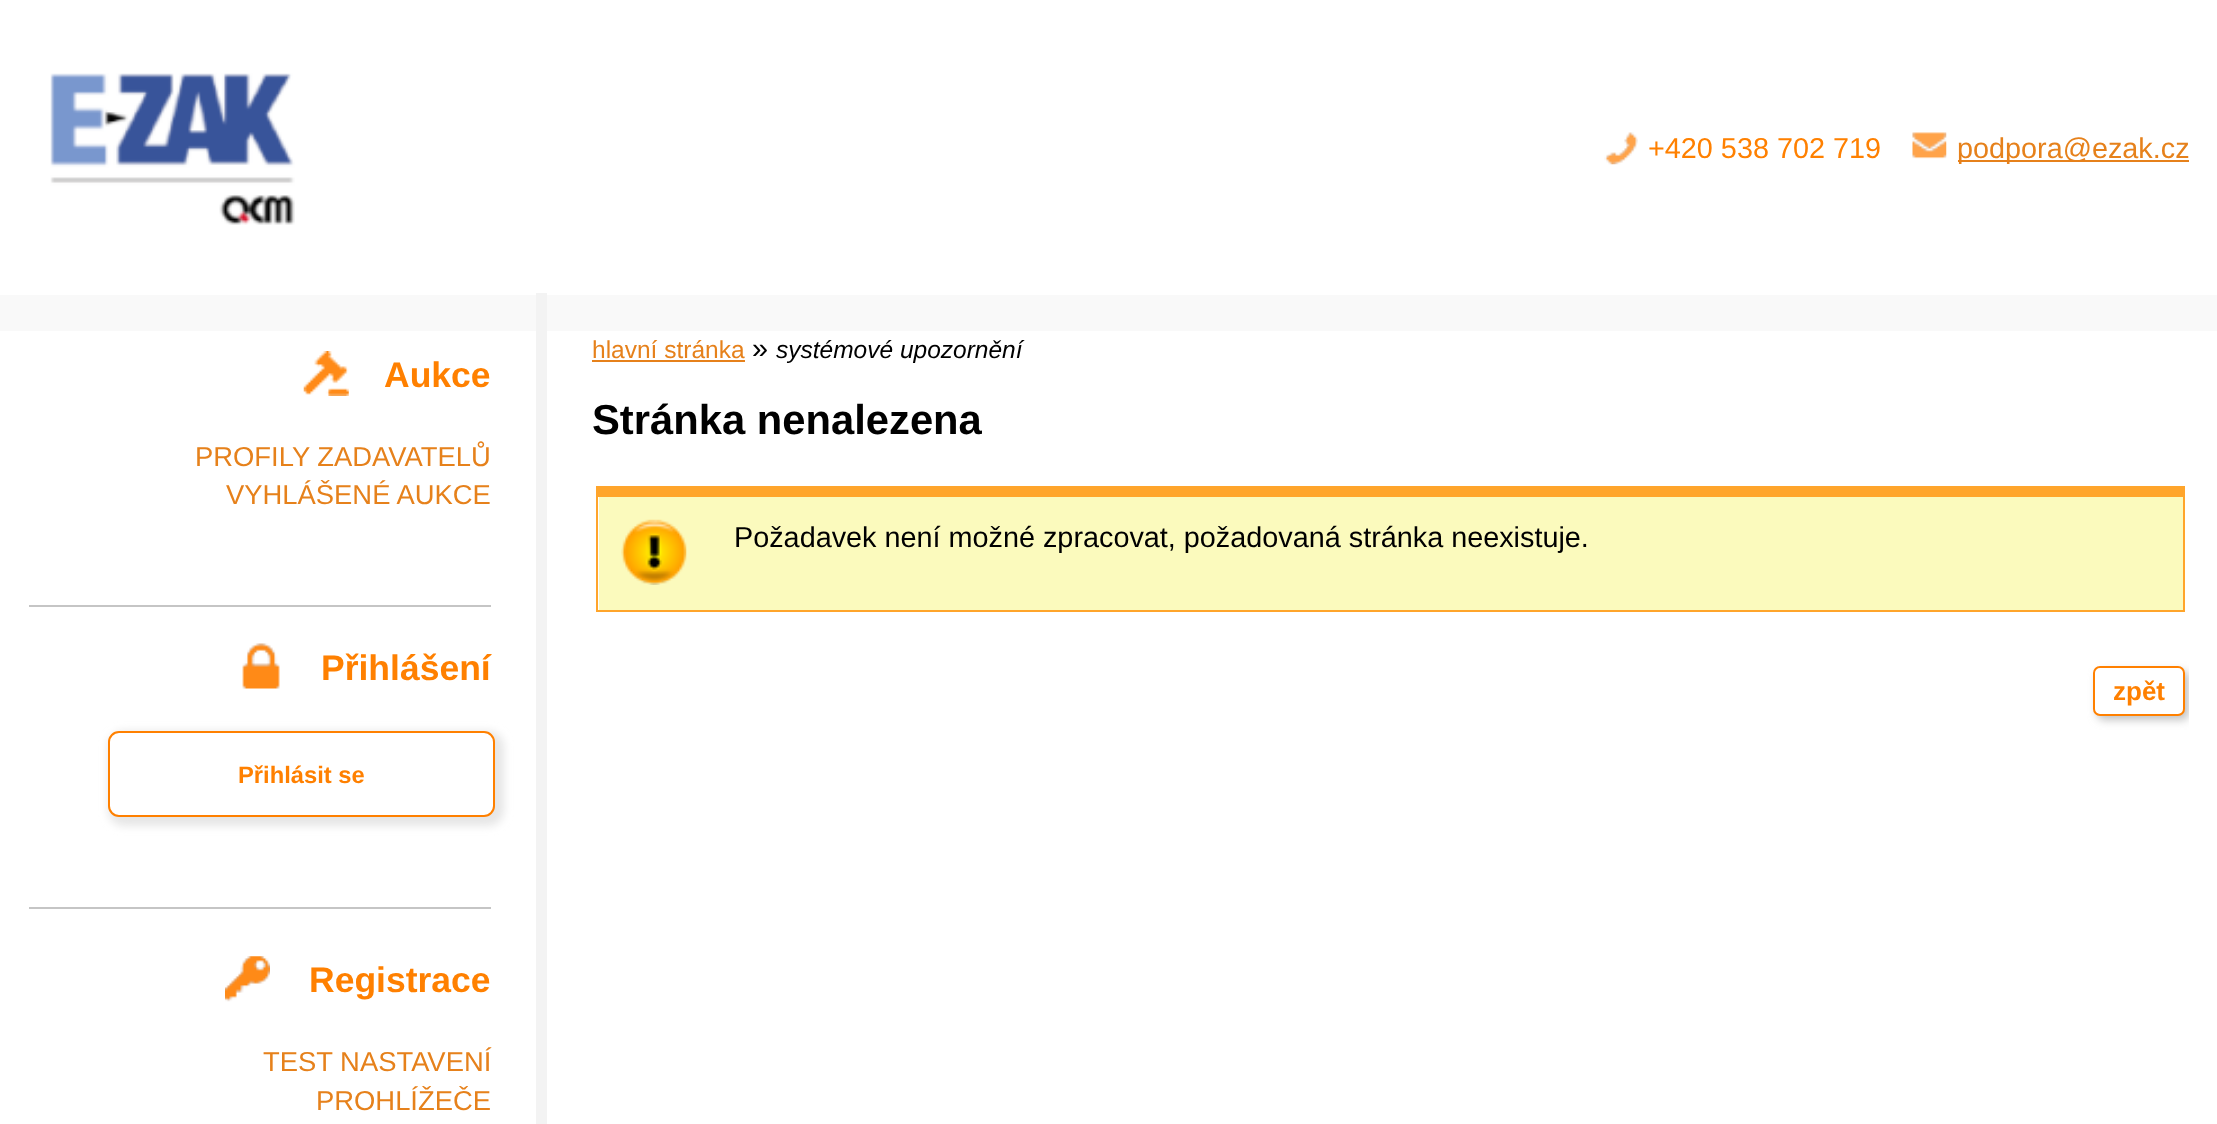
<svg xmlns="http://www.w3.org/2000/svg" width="2217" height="1124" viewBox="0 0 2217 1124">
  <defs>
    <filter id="blur1" x="-50%" y="-200%" width="200%" height="500%"><feGaussianBlur stdDeviation="4.5"/></filter>
    <clipPath id="clip1"><rect x="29" y="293" width="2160" height="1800"/></clipPath>
  </defs>
  <rect width="100%" height="100%" fill="#ffffff"/>
  <rect x="0" y="295" width="2217" height="36" fill="#f9f9f9"/>
  <image x="50" y="73" width="245" height="152" href="img1.png"/>
  <image x="1604" y="132" width="34" height="33" href="img2.png"/>
  <text x="1648" y="158" font-family="Liberation Sans" font-size="28.8" fill="#ff8000">+420 538 702 719</text>
  <image x="1912" y="132" width="35" height="27" href="img3.png"/>
  <rect x="1958" y="160" width="231" height="2" fill="#e6811b"/>
  <text x="1957" y="158" font-family="Liberation Sans" font-size="28.8" fill="#e6811b">podpora@ezak.cz</text>
  <rect x="536" y="293" width="11" height="831" fill="#f3f3f3"/>
  <image x="303" y="351" width="46" height="45" href="img4.png"/>
  <text x="384" y="387" font-family="Liberation Sans" font-size="35.5" font-weight="bold" fill="#ff8000">Aukce</text>
  <rect x="29" y="605" width="462" height="2" fill="#c5c5c5"/>
  <text x="195" y="466" font-family="Liberation Sans" font-size="27.4" fill="#e6811b">PROFILY ZADAVATELŮ</text>
  <text x="226" y="504" font-family="Liberation Sans" font-size="27.4" fill="#e6811b">VYHLÁŠENÉ AUKCE</text>
  <image x="242" y="643" width="38" height="46" href="img5.png"/>
  <text x="321" y="680" font-family="Liberation Sans" font-size="35.5" font-weight="bold" fill="#ff8000">Přihlášení</text>
  <rect x="29" y="907" width="462" height="2" fill="#c5c5c5"/>
  <rect x="108" y="731" width="396" height="95" rx="16" fill="#e6e6e6" filter="url(#blur1)"/>
  <rect x="109" y="732" width="385" height="84" rx="10" fill="#ffffff" stroke="#ff8000" stroke-width="2"/>
  <text x="238" y="783" font-family="Liberation Sans" font-size="23.75" font-weight="bold" fill="#ff8000">Přihlásit se</text>
  <image x="225" y="956" width="45" height="46" href="img6.png"/>
  <text x="309" y="992" font-family="Liberation Sans" font-size="35.5" font-weight="bold" fill="#ff8000">Registrace</text>
  <text x="263" y="1071" font-family="Liberation Sans" font-size="27.4" fill="#e6811b">TEST NASTAVENÍ</text>
  <text x="316" y="1110" font-family="Liberation Sans" font-size="27.4" fill="#e6811b">PROHLÍŽEČE</text>
  <text x="592" y="358" font-family="Liberation Sans" font-size="24.5" fill="#e6811b">hlavní stránka</text>
  <rect x="592" y="360" width="153" height="2" fill="#e6811b"/>
  <text x="752" y="358" font-family="Liberation Sans" font-size="28.8" fill="#000000">»</text>
  <text x="776" y="358" font-family="Liberation Sans" font-size="24.5" font-style="italic" fill="#000000">systémové upozornění</text>
  <text x="592" y="434" font-family="Liberation Sans" font-size="41.75" font-weight="bold" fill="#000000">Stránka nenalezena</text>
  <rect x="599" y="497" width="1584" height="113" fill="#fbfabd"/>
  <image x="621" y="519" width="66" height="66" href="img7.png"/>
  <rect x="598" y="486" width="1585" height="11" fill="#ffa52b"/>
  <rect x="2183" y="486" width="2" height="126" fill="#ffa52b"/>
  <rect x="596" y="610" width="1589" height="2" fill="#ffa52b"/>
  <rect x="596" y="486" width="2" height="126" fill="#ffa52b"/>
  <text x="734" y="547" font-family="Liberation Sans" font-size="28.8" fill="#000000">Požadavek není možné zpracovat, požadovaná stránka neexistuje.</text>
  <g clip-path="url(#clip1)">
    <rect x="2097" y="671" width="92" height="49" rx="7" fill="#c2c2c2" filter="url(#blur1)"/>
  </g>
  <rect x="2094" y="667" width="90" height="48" rx="6" fill="#ffffff" stroke="#ff8000" stroke-width="2"/>
  <text x="2113" y="700" font-family="Liberation Sans" font-size="26" font-weight="bold" fill="#ff8000">zpět</text>
</svg>
